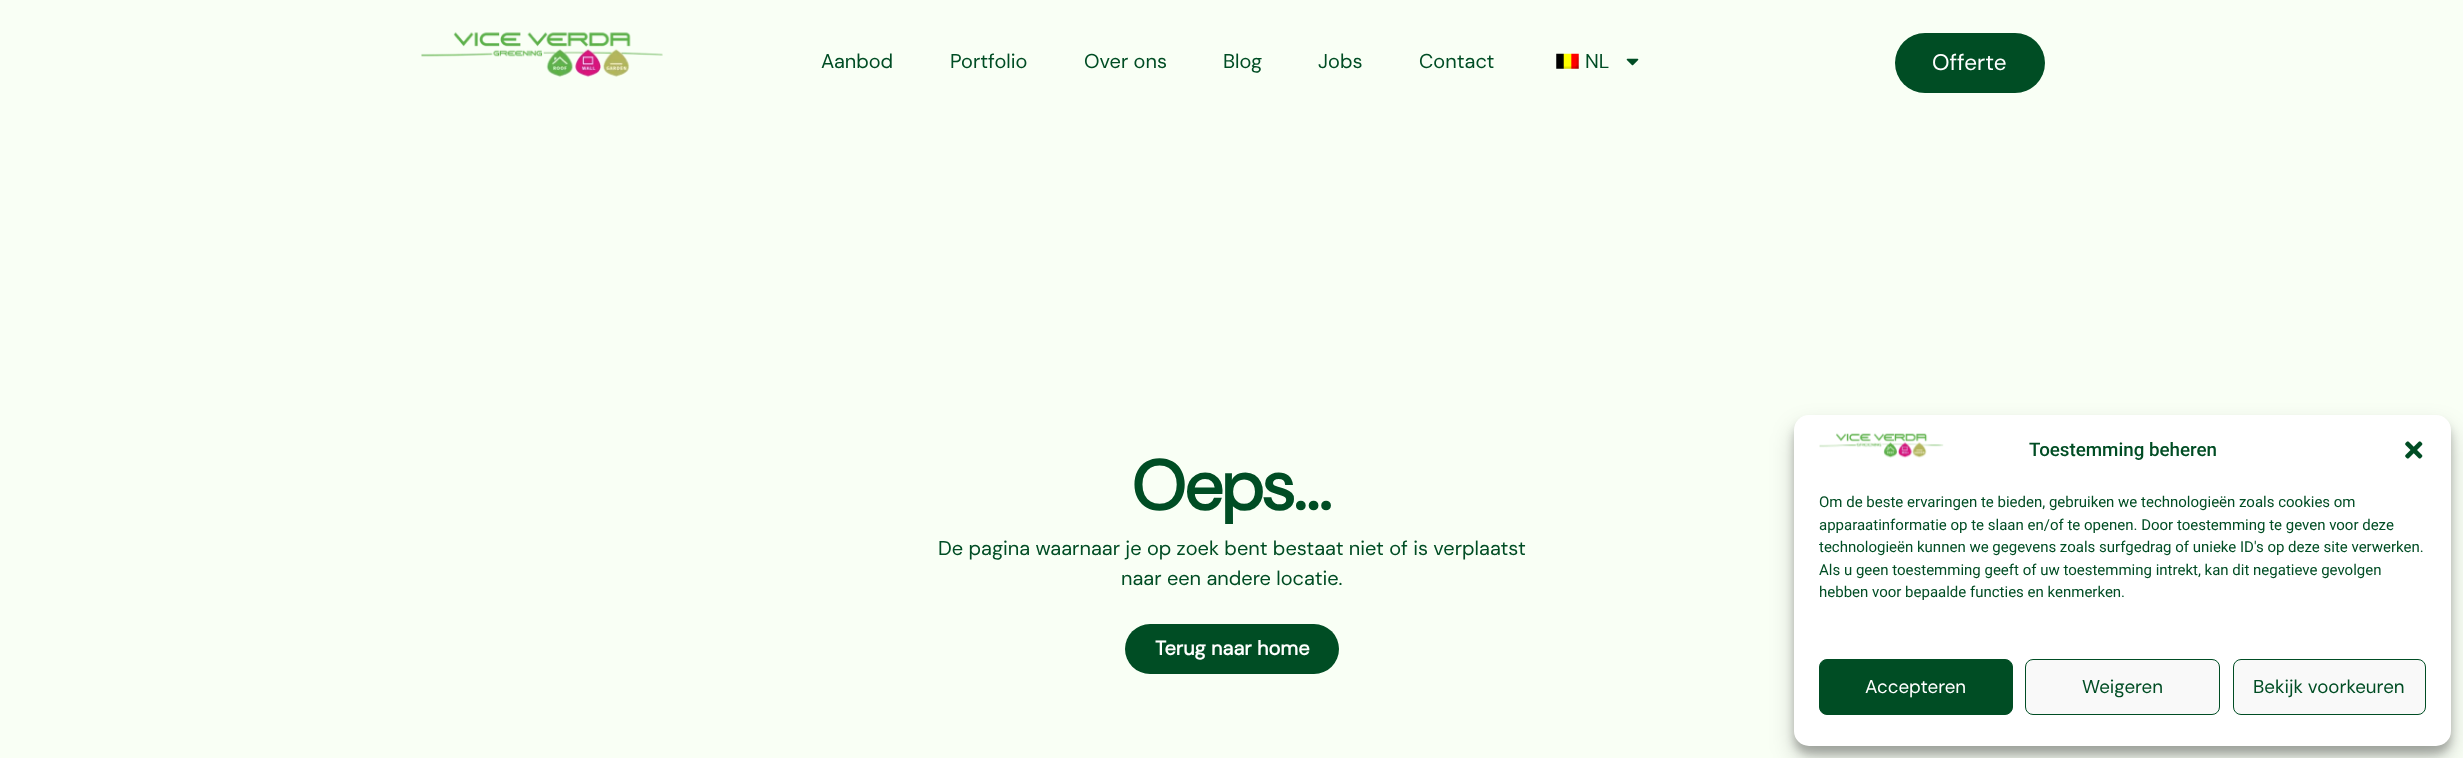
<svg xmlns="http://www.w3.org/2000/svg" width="2463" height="758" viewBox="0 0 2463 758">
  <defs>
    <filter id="blur1" x="-50%" y="-200%" width="200%" height="500%"><feGaussianBlur stdDeviation="4"/></filter>
    <filter id="blur2" x="-50%" y="-200%" width="200%" height="500%"><feGaussianBlur stdDeviation="12.5"/></filter>
  </defs>
  <rect width="100%" height="100%" fill="#f9fff5"/>
  <image x="421" y="32" width="242" height="45" href="img1.png"/>
  <text x="821" y="68" font-family="'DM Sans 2'" font-size="20" fill="#004d24">Aanbod</text>
  <text x="950" y="68" font-family="'DM Sans 2'" font-size="20" fill="#004d24">Portfolio</text>
  <text x="1084" y="68" font-family="'DM Sans 2'" font-size="20" fill="#004d24">Over ons</text>
  <text x="1223" y="68" font-family="'DM Sans 2'" font-size="20" fill="#004d24">Blog</text>
  <text x="1318" y="68" font-family="'DM Sans 2'" font-size="20" fill="#004d24">Jobs</text>
  <text x="1419" y="68" font-family="'DM Sans 2'" font-size="20" fill="#004d24">Contact</text>
  <image x="1556" y="53" width="23" height="16" href="img2.png"/>
  <text x="1585" y="68" font-family="'DM Sans 2'" font-size="20" fill="#004d24">NL</text>
  <image x="1626" y="58" width="13" height="8" href="img3.png"/>
  <rect x="1895" y="33" width="150" height="60" rx="30" fill="#004d24"/>
  <text x="1932" y="70" font-family="DM Sans" font-size="22.5" fill="#ffffff">Offerte</text>
  <text x="1132" y="510" font-family="DM Sans" font-size="70" font-weight="bold" fill="#004d24">Oeps...</text>
  <text x="938" y="555" font-family="'DM Sans 2'" font-size="20" fill="#004d24">De pagina waarnaar je op zoek bent bestaat niet of is verplaatst</text>
  <text x="1121" y="585" font-family="'DM Sans 2'" font-size="20" fill="#004d24">naar een andere locatie.</text>
  <rect x="1125" y="624" width="214" height="50" rx="25" fill="#004d24"/>
  <text x="1155" y="655" font-family="'DM Sans 2'" font-size="20" font-weight="bold" fill="#ffffff">Terug naar home</text>
  <rect x="1794" y="423" width="657" height="331" rx="15" fill="#000000" fill-opacity="0.23" filter="url(#blur1)"/>
  <rect x="1794" y="428" width="657" height="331" rx="15" fill="#000000" fill-opacity="0.19" filter="url(#blur2)"/>
  <rect x="1794" y="415" width="657" height="331" rx="15" fill="#ffffff"/>
  <image x="1819" y="433" width="125" height="25" href="img4.png"/>
  <text x="2029" y="456" font-family="Roboto" font-size="18.75" font-weight="500" fill="#004d24">Toestemming beheren</text>
  <image x="2405" y="441" width="18" height="18" href="img5.png"/>
  <text x="1819" y="507" font-family="Roboto" font-size="15" fill="#004d24">Om de beste ervaringen te bieden, gebruiken we technologieën zoals cookies om</text>
  <text x="1819" y="530" font-family="Roboto" font-size="15" fill="#004d24">apparaatinformatie op te slaan en/of te openen. Door toestemming te geven voor deze</text>
  <text x="1819" y="552" font-family="Roboto" font-size="15" fill="#004d24">technologieën kunnen we gegevens zoals surfgedrag of unieke ID's op deze site verwerken.</text>
  <text x="1819" y="575" font-family="Roboto" font-size="15" fill="#004d24">Als u geen toestemming geeft of uw toestemming intrekt, kan dit negatieve gevolgen</text>
  <text x="1819" y="597" font-family="Roboto" font-size="15" fill="#004d24">hebben voor bepaalde functies en kenmerken.</text>
  <rect x="1819.5" y="659.5" width="193" height="55" rx="7.5" fill="#004d24" stroke="#004d24"/>
  <text x="1865" y="693" font-family="'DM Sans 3'" font-size="18.75" fill="#ffffff">Accepteren</text>
  <rect x="2025.5" y="659.5" width="194" height="55" rx="7.5" fill="#f9f9f9" stroke="#004d24"/>
  <text x="2082" y="693" font-family="'DM Sans 3'" font-size="18.75" fill="#004d24">Weigeren</text>
  <rect x="2233.5" y="659.5" width="192" height="55" rx="7.5" fill="#f9f9f9" stroke="#004d24"/>
  <text x="2253" y="693" font-family="'DM Sans 3'" font-size="18.75" fill="#004d24">Bekijk voorkeuren</text>
</svg>
